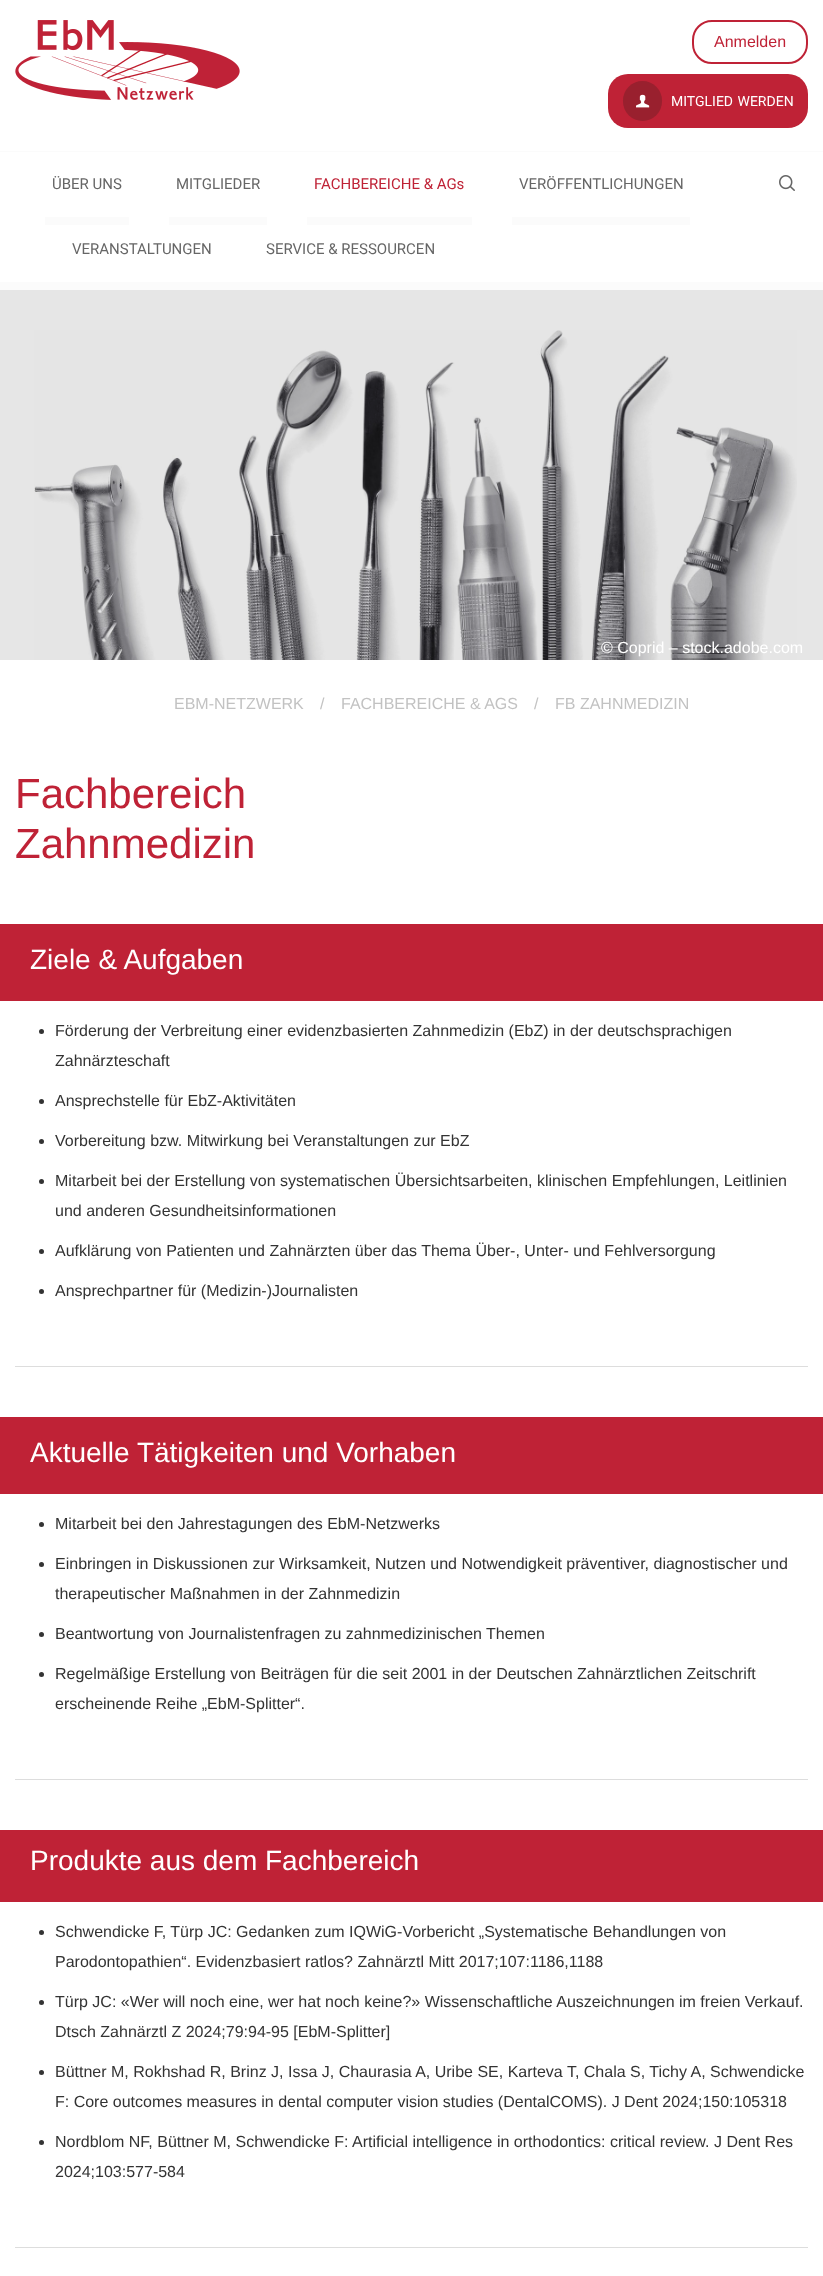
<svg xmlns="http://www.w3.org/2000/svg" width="823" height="2276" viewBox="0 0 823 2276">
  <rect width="100%" height="100%" fill="#ffffff"/>
  <rect x="0" y="290" width="823" height="370" fill="#e6e6e6"/>
  <image x="15" y="20" width="225" height="80" href="img1.png"/>
  <rect x="693" y="21" width="114" height="42" rx="19" fill="none" stroke="#bf2236" stroke-width="2"/>
  <text x="714" y="47" font-family="Liberation Sans" font-size="16" fill="#bf2236">Anmelden</text>
  <rect x="608" y="74" width="200" height="54" rx="20" fill="#bf2236"/>
  <rect x="623" y="81" width="39" height="40" rx="19.5" fill="#99202e"/>
  <image x="636" y="94" width="14" height="14" href="img2.png"/>
  <text x="671" y="106" word-spacing="1" font-family="Roboto" font-size="14" fill="#ffffff">MITGLIED WERDEN</text>
  <rect x="0" y="151" width="823" height="1" fill="#fbfbfb"/>
  <rect x="0" y="282" width="823" height="8" fill="#fbfbfb"/>
  <rect x="45" y="217" width="84" height="8" fill="#fbfbfb"/>
  <text x="52" y="189" font-family="Roboto" font-size="15" fill="#666666">ÜBER UNS</text>
  <rect x="169" y="217" width="98" height="8" fill="#fbfbfb"/>
  <text x="176" y="189" font-family="Roboto" font-size="15" fill="#666666">MITGLIEDER</text>
  <rect x="307" y="217" width="165" height="8" fill="#fbfbfb"/>
  <text x="314" y="189" font-family="Roboto" font-size="15" fill="#bf2236">FACHBEREICHE &amp; AGs</text>
  <rect x="512" y="217" width="178" height="8" fill="#fbfbfb"/>
  <text x="519" y="189" font-family="Roboto" font-size="15" fill="#666666">VERÖFFENTLICHUNGEN</text>
  <text x="72" y="254" font-family="Roboto" font-size="15" fill="#666666">VERANSTALTUNGEN</text>
  <text x="266" y="254" font-family="Roboto" font-size="15" fill="#666666">SERVICE &amp; RESSOURCEN</text>
  <image x="779" y="175" width="16" height="16" href="img3.png"/>
  <image x="34" y="330" width="763" height="330" href="img4.png"/>
  <text x="601" y="653" font-family="Liberation Sans" font-size="16" fill="#ffffff">© Coprid – stock.adobe.com</text>
  <text x="174" y="709" font-family="Liberation Sans" font-size="16" fill="#c2c2c2">EBM-NETZWERK</text>
  <text x="320" y="709" font-family="Liberation Sans" font-size="16" fill="#c2c2c2">/</text>
  <text x="341" y="709" font-family="Liberation Sans" font-size="16" fill="#c2c2c2">FACHBEREICHE &amp; AGS</text>
  <text x="534" y="709" font-family="Liberation Sans" font-size="16" fill="#c2c2c2">/</text>
  <text x="555" y="709" font-family="Liberation Sans" font-size="16" fill="#c2c2c2">FB ZAHNMEDIZIN</text>
  <text x="15" y="808" font-family="Liberation Sans" font-size="42" fill="#bf2236">Fachbereich</text>
  <text x="15" y="858" font-family="Liberation Sans" font-size="42" fill="#bf2236">Zahnmedizin</text>
  <rect x="0" y="924" width="823" height="77" fill="#bf2236"/>
  <text x="30" y="969" font-family="Liberation Sans" font-size="28" fill="#ffffff">Ziele &amp; Aufgaben</text>
  <circle cx="41.5" cy="1031.5" r="2.5" fill="#333333"/>
  <text x="55" y="1036" font-family="Liberation Sans" font-size="16" fill="#333333">Förderung der Verbreitung einer evidenzbasierten Zahnmedizin (EbZ) in der deutschsprachigen</text>
  <text x="55" y="1066" font-family="Liberation Sans" font-size="16" fill="#333333">Zahnärzteschaft</text>
  <circle cx="41.5" cy="1101.5" r="2.5" fill="#333333"/>
  <text x="55" y="1106" font-family="Liberation Sans" font-size="16" fill="#333333">Ansprechstelle für EbZ-Aktivitäten</text>
  <circle cx="41.5" cy="1141.5" r="2.5" fill="#333333"/>
  <text x="55" y="1146" font-family="Liberation Sans" font-size="16" fill="#333333">Vorbereitung bzw. Mitwirkung bei Veranstaltungen zur EbZ</text>
  <circle cx="41.5" cy="1181.5" r="2.5" fill="#333333"/>
  <text x="55" y="1186" font-family="Liberation Sans" font-size="16" fill="#333333">Mitarbeit bei der Erstellung von systematischen Übersichtsarbeiten, klinischen Empfehlungen, Leitlinien</text>
  <text x="55" y="1216" font-family="Liberation Sans" font-size="16" fill="#333333">und anderen Gesundheitsinformationen</text>
  <circle cx="41.5" cy="1251.5" r="2.5" fill="#333333"/>
  <text x="55" y="1256" font-family="Liberation Sans" font-size="16" fill="#333333">Aufklärung von Patienten und Zahnärzten über das Thema Über-, Unter- und Fehlversorgung</text>
  <circle cx="41.5" cy="1291.5" r="2.5" fill="#333333"/>
  <text x="55" y="1296" font-family="Liberation Sans" font-size="16" fill="#333333">Ansprechpartner für (Medizin-)Journalisten</text>
  <rect x="15" y="1366" width="793" height="1" fill="#dddddd"/>
  <rect x="0" y="1417" width="823" height="77" fill="#bf2236"/>
  <text x="30" y="1462" font-family="Liberation Sans" font-size="28" fill="#ffffff">Aktuelle Tätigkeiten und Vorhaben</text>
  <circle cx="41.5" cy="1524.5" r="2.5" fill="#333333"/>
  <text x="55" y="1529" font-family="Liberation Sans" font-size="16" fill="#333333">Mitarbeit bei den Jahrestagungen des EbM-Netzwerks</text>
  <circle cx="41.5" cy="1564.5" r="2.5" fill="#333333"/>
  <text x="55" y="1569" font-family="Liberation Sans" font-size="16" fill="#333333">Einbringen in Diskussionen zur Wirksamkeit, Nutzen und Notwendigkeit präventiver, diagnostischer und</text>
  <text x="55" y="1599" font-family="Liberation Sans" font-size="16" fill="#333333">therapeutischer Maßnahmen in der Zahnmedizin</text>
  <circle cx="41.5" cy="1634.5" r="2.5" fill="#333333"/>
  <text x="55" y="1639" font-family="Liberation Sans" font-size="16" fill="#333333">Beantwortung von Journalistenfragen zu zahnmedizinischen Themen</text>
  <circle cx="41.5" cy="1674.5" r="2.5" fill="#333333"/>
  <text x="55" y="1679" font-family="Liberation Sans" font-size="16" fill="#333333">Regelmäßige Erstellung von Beiträgen für die seit 2001 in der Deutschen Zahnärztlichen Zeitschrift</text>
  <text x="55" y="1709" font-family="Liberation Sans" font-size="16" fill="#333333">erscheinende Reihe „EbM-Splitter“.</text>
  <rect x="15" y="1779" width="793" height="1" fill="#dddddd"/>
  <rect x="0" y="1830" width="823" height="72" fill="#bf2236"/>
  <text x="30" y="1870" font-family="Liberation Sans" font-size="28" fill="#ffffff">Produkte aus dem Fachbereich</text>
  <circle cx="41.5" cy="1932.5" r="2.5" fill="#333333"/>
  <text x="55" y="1937" font-family="Liberation Sans" font-size="16" fill="#333333">Schwendicke F, Türp JC: Gedanken zum IQWiG-Vorbericht „Systematische Behandlungen von</text>
  <text x="55" y="1967" font-family="Liberation Sans" font-size="16" fill="#333333">Parodontopathien“. Evidenzbasiert ratlos? Zahnärztl Mitt 2017;107:1186,1188</text>
  <circle cx="41.5" cy="2002.5" r="2.5" fill="#333333"/>
  <text x="55" y="2007" font-family="Liberation Sans" font-size="16" fill="#333333">Türp JC: «Wer will noch eine, wer hat noch keine?» Wissenschaftliche Auszeichnungen im freien Verkauf.</text>
  <text x="55" y="2037" font-family="Liberation Sans" font-size="16" fill="#333333">Dtsch Zahnärztl Z 2024;79:94-95 [EbM-Splitter]</text>
  <circle cx="41.5" cy="2072.5" r="2.5" fill="#333333"/>
  <text x="55" y="2077" font-family="Liberation Sans" font-size="16" fill="#333333">Büttner M, Rokhshad R, Brinz J, Issa J, Chaurasia A, Uribe SE, Karteva T, Chala S, Tichy A, Schwendicke</text>
  <text x="55" y="2107" font-family="Liberation Sans" font-size="16" fill="#333333">F: Core outcomes measures in dental computer vision studies (DentalCOMS). J Dent 2024;150:105318</text>
  <circle cx="41.5" cy="2142.5" r="2.5" fill="#333333"/>
  <text x="55" y="2147" font-family="Liberation Sans" font-size="16" fill="#333333">Nordblom NF, Büttner M, Schwendicke F: Artificial intelligence in orthodontics: critical review. J Dent Res</text>
  <text x="55" y="2177" font-family="Liberation Sans" font-size="16" fill="#333333">2024;103:577-584</text>
  <rect x="15" y="2247" width="793" height="1" fill="#dddddd"/>
</svg>
